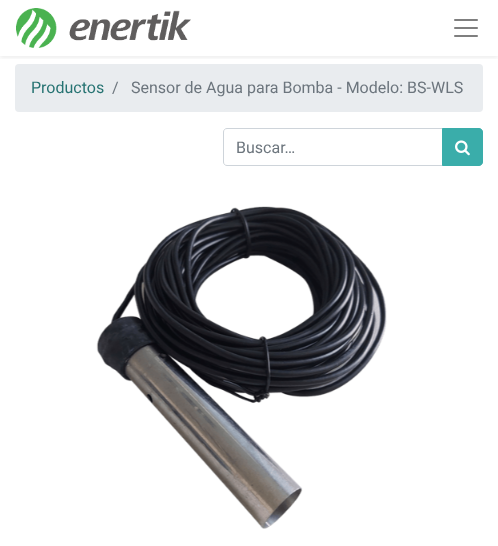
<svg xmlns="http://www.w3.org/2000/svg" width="498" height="546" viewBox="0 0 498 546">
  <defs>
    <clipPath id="clip1"><rect x="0" y="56" width="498" height="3"/></clipPath>
    <filter id="blur1" x="-50%" y="-200%" width="200%" height="500%"><feGaussianBlur stdDeviation="2"/></filter>
  </defs>
  <rect width="100%" height="100%" fill="#ffffff"/>
  <rect x="15" y="64" width="468" height="48" rx="4" fill="#e9ecef"/>
  <g clip-path="url(#clip1)">
    <rect x="0" y="2" width="498" height="56" fill="#000000" fill-opacity="0.07" filter="url(#blur1)"/>
  </g>
  <image x="16" y="8" width="175" height="40" href="img1.png"/>
  <image x="454" y="19" width="24" height="18" href="img2.png"/>
  <text x="31" y="93" font-family="Roboto" font-size="16" fill="#267372">Productos</text>
  <text x="112" y="93" font-family="Roboto" font-size="16" fill="#6c757d">/</text>
  <text x="131" y="93" font-family="Roboto" font-size="16" fill="#6c757d">Sensor de Agua para Bomba - Modelo: BS-WLS</text>
  <path d="M227 128.5H442.5V165.5H227C225 165.5 223.5 164 223.5 162V132C223.5 130 225 128.5 227 128.5Z" fill="none" stroke="#ced4da"/>
  <text x="236" y="153" font-family="Roboto" font-size="16" fill="#6c757d">Buscar…</text>
  <path d="M442.5 128.5H479C481 128.5 482.5 130 482.5 132V162C482.5 164 481 165.5 479 165.5H442.5Z" fill="#3aadaa" stroke="#3aadaa"/>
  <image x="455" y="140" width="15" height="16" href="img3.png"/>
  <image x="96" y="206" width="291" height="323" href="img4.png"/>
</svg>
